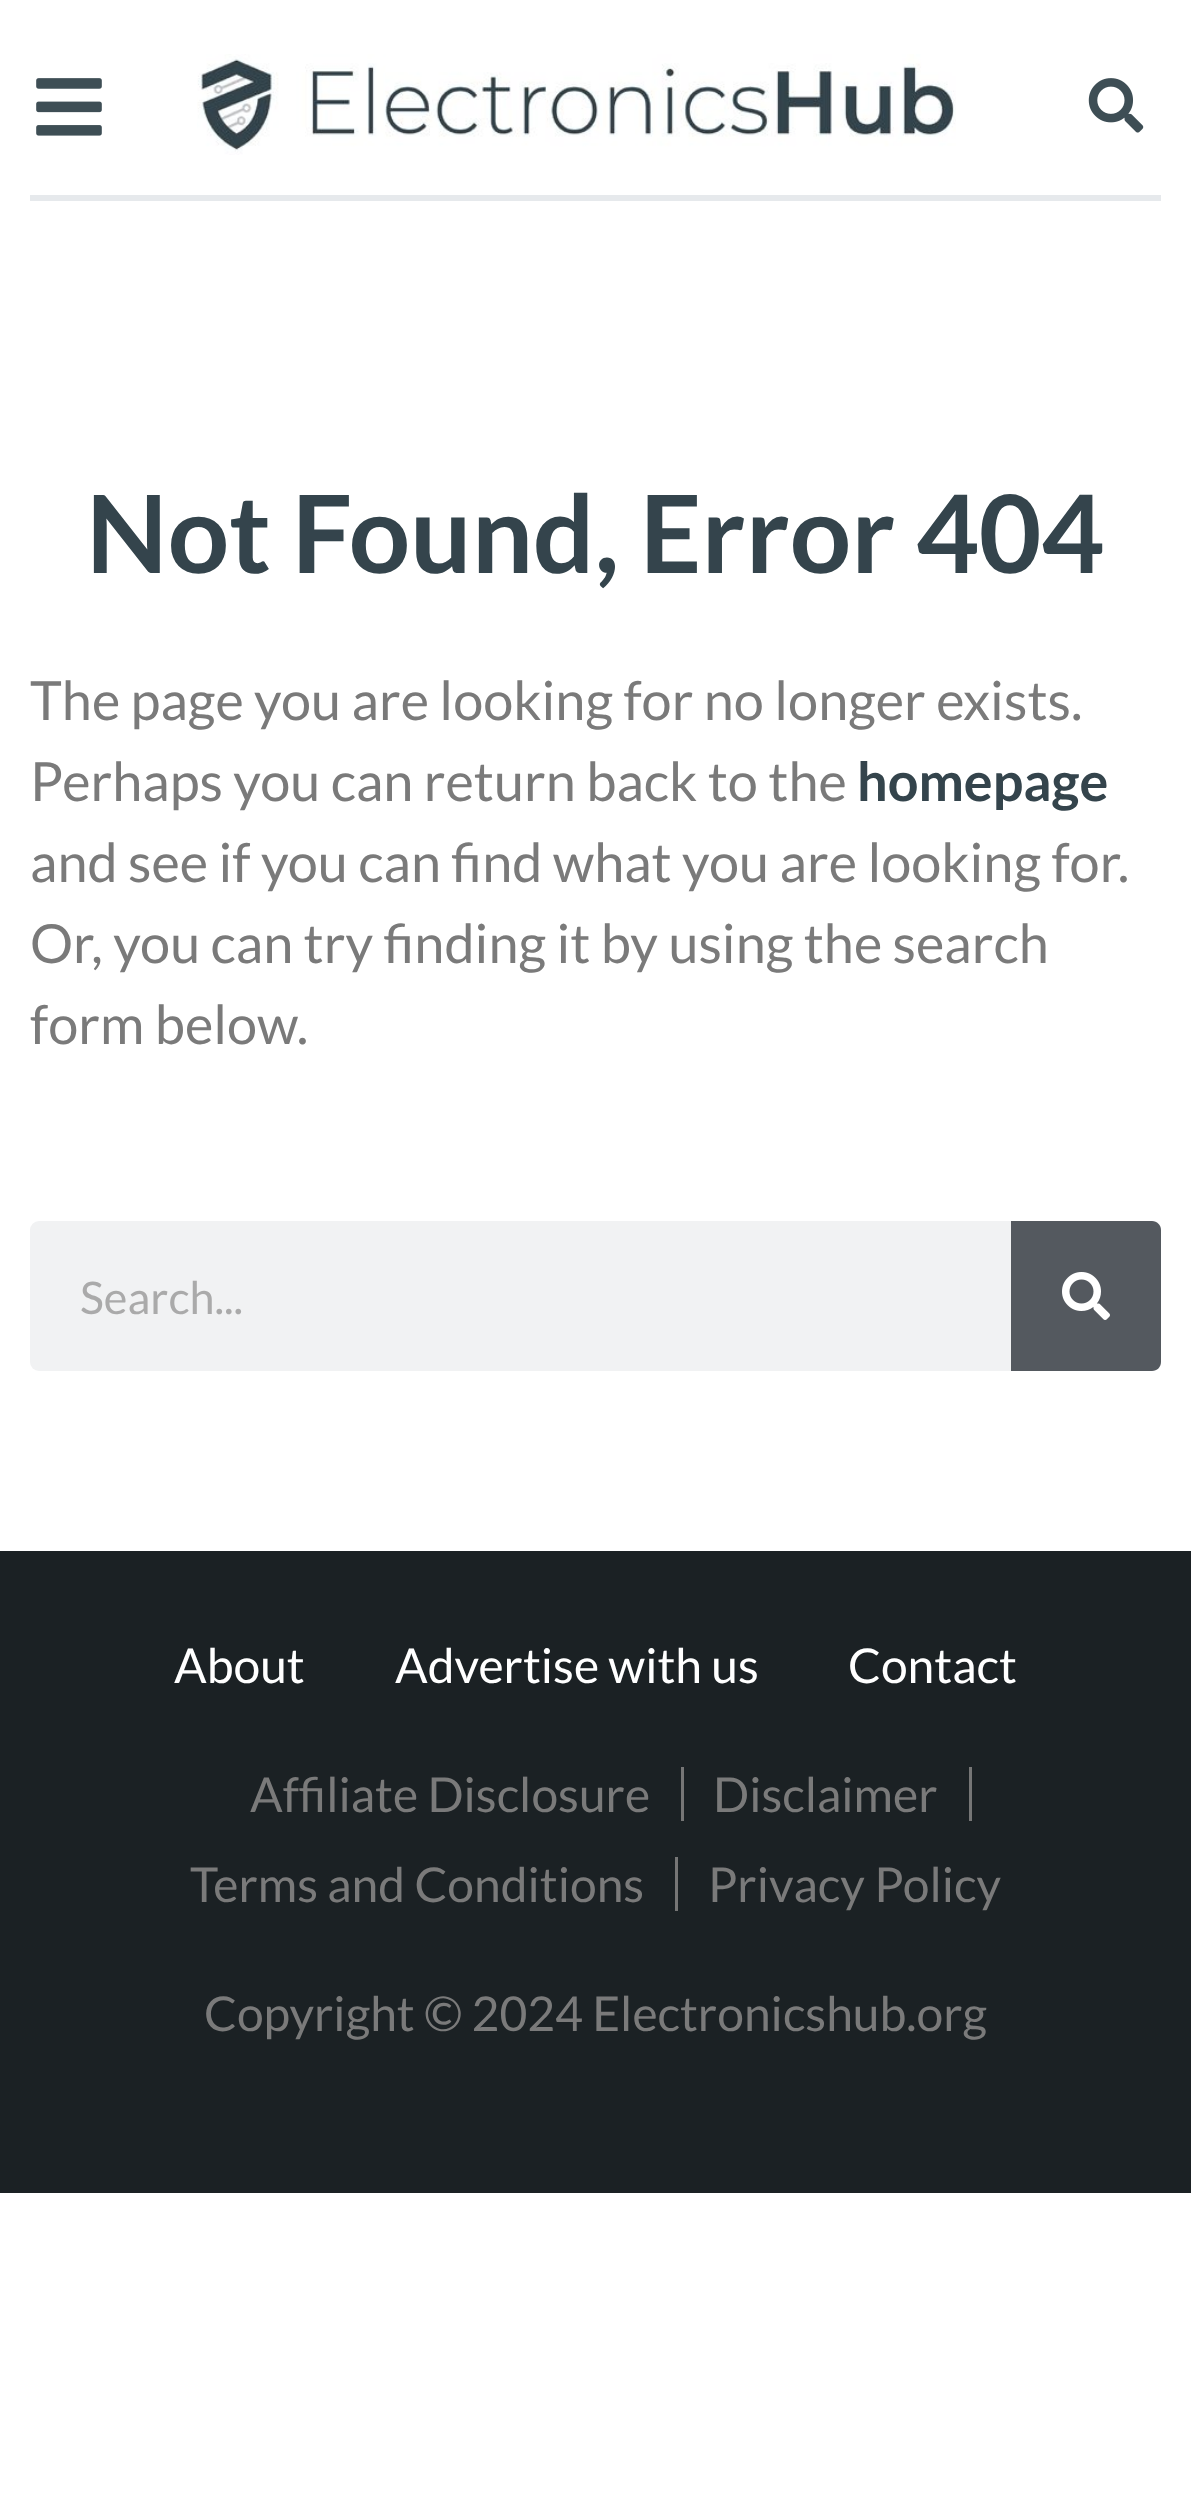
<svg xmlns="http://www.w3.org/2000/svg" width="1191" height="2493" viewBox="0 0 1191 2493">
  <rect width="100%" height="100%" fill="#ffffff"/>
  <image x="36" y="78" width="66" height="58" href="img1.png"/>
  <image x="197" y="54" width="759" height="101" href="img2.png"/>
  <image x="1088" y="78" width="56" height="55" href="img3.png"/>
  <rect x="30" y="195" width="1131" height="6" fill="#e6e9ec"/>
  <text x="86" y="573" font-family="Lato" font-size="108" font-weight="bold" fill="#34444c">Not Found, Error 404</text>
  <text x="30" y="720" font-family="Lato" font-size="54" fill="#7a7a7a">The page you are looking for no longer exists.</text>
  <text x="30" y="801" font-family="Lato" font-size="54" fill="#7a7a7a">Perhaps you can return back to the</text>
  <text x="857" y="801" font-family="Lato" font-size="54" font-weight="bold" fill="#34444c">homepage</text>
  <text x="30" y="882" font-family="Lato" font-size="54" fill="#7a7a7a">and see if you can find what you are looking for.</text>
  <text x="30" y="963" font-family="Lato" font-size="54" fill="#7a7a7a">Or, you can try finding it by using the search</text>
  <text x="30" y="1044" font-family="Lato" font-size="54" fill="#7a7a7a">form below.</text>
  <rect x="30" y="1221" width="1131" height="150" rx="9" fill="#f1f2f3"/>
  <text x="80" y="1314" font-family="Lato" font-size="45" fill="#aaaaaa">Search...</text>
  <path d="M1011 1221H1152C1157 1221 1161 1225 1161 1230V1362C1161 1367 1157 1371 1152 1371H1011Z" fill="#54595f"/>
  <image x="1062" y="1272" width="48" height="48" href="img4.png"/>
  <rect x="0" y="1551" width="1191" height="642" fill="#1b2124"/>
  <text x="174" y="1683" font-family="Lato" font-size="48" fill="#ffffff">About</text>
  <text x="395" y="1683" font-family="Lato" font-size="48" fill="#ffffff">Advertise with us</text>
  <text x="848" y="1683" font-family="Lato" font-size="48" fill="#ffffff">Contact</text>
  <text x="250" y="1812" font-family="Lato" font-size="48" fill="#7a7a7a">Affiliate Disclosure</text>
  <rect x="681" y="1767" width="3" height="54" fill="#767676"/>
  <text x="713" y="1812" font-family="Lato" font-size="48" fill="#7a7a7a">Disclaimer</text>
  <rect x="969" y="1767" width="3" height="54" fill="#767676"/>
  <text x="190" y="1902" font-family="Lato" font-size="48" fill="#7a7a7a">Terms and Conditions</text>
  <rect x="675" y="1857" width="3" height="54" fill="#767676"/>
  <text x="708" y="1902" font-family="Lato" font-size="48" fill="#7a7a7a">Privacy Policy</text>
  <text x="204" y="2031" font-family="Lato" font-size="48" fill="#7a7a7a">Copyright © 2024 Electronicshub.org</text>
</svg>
